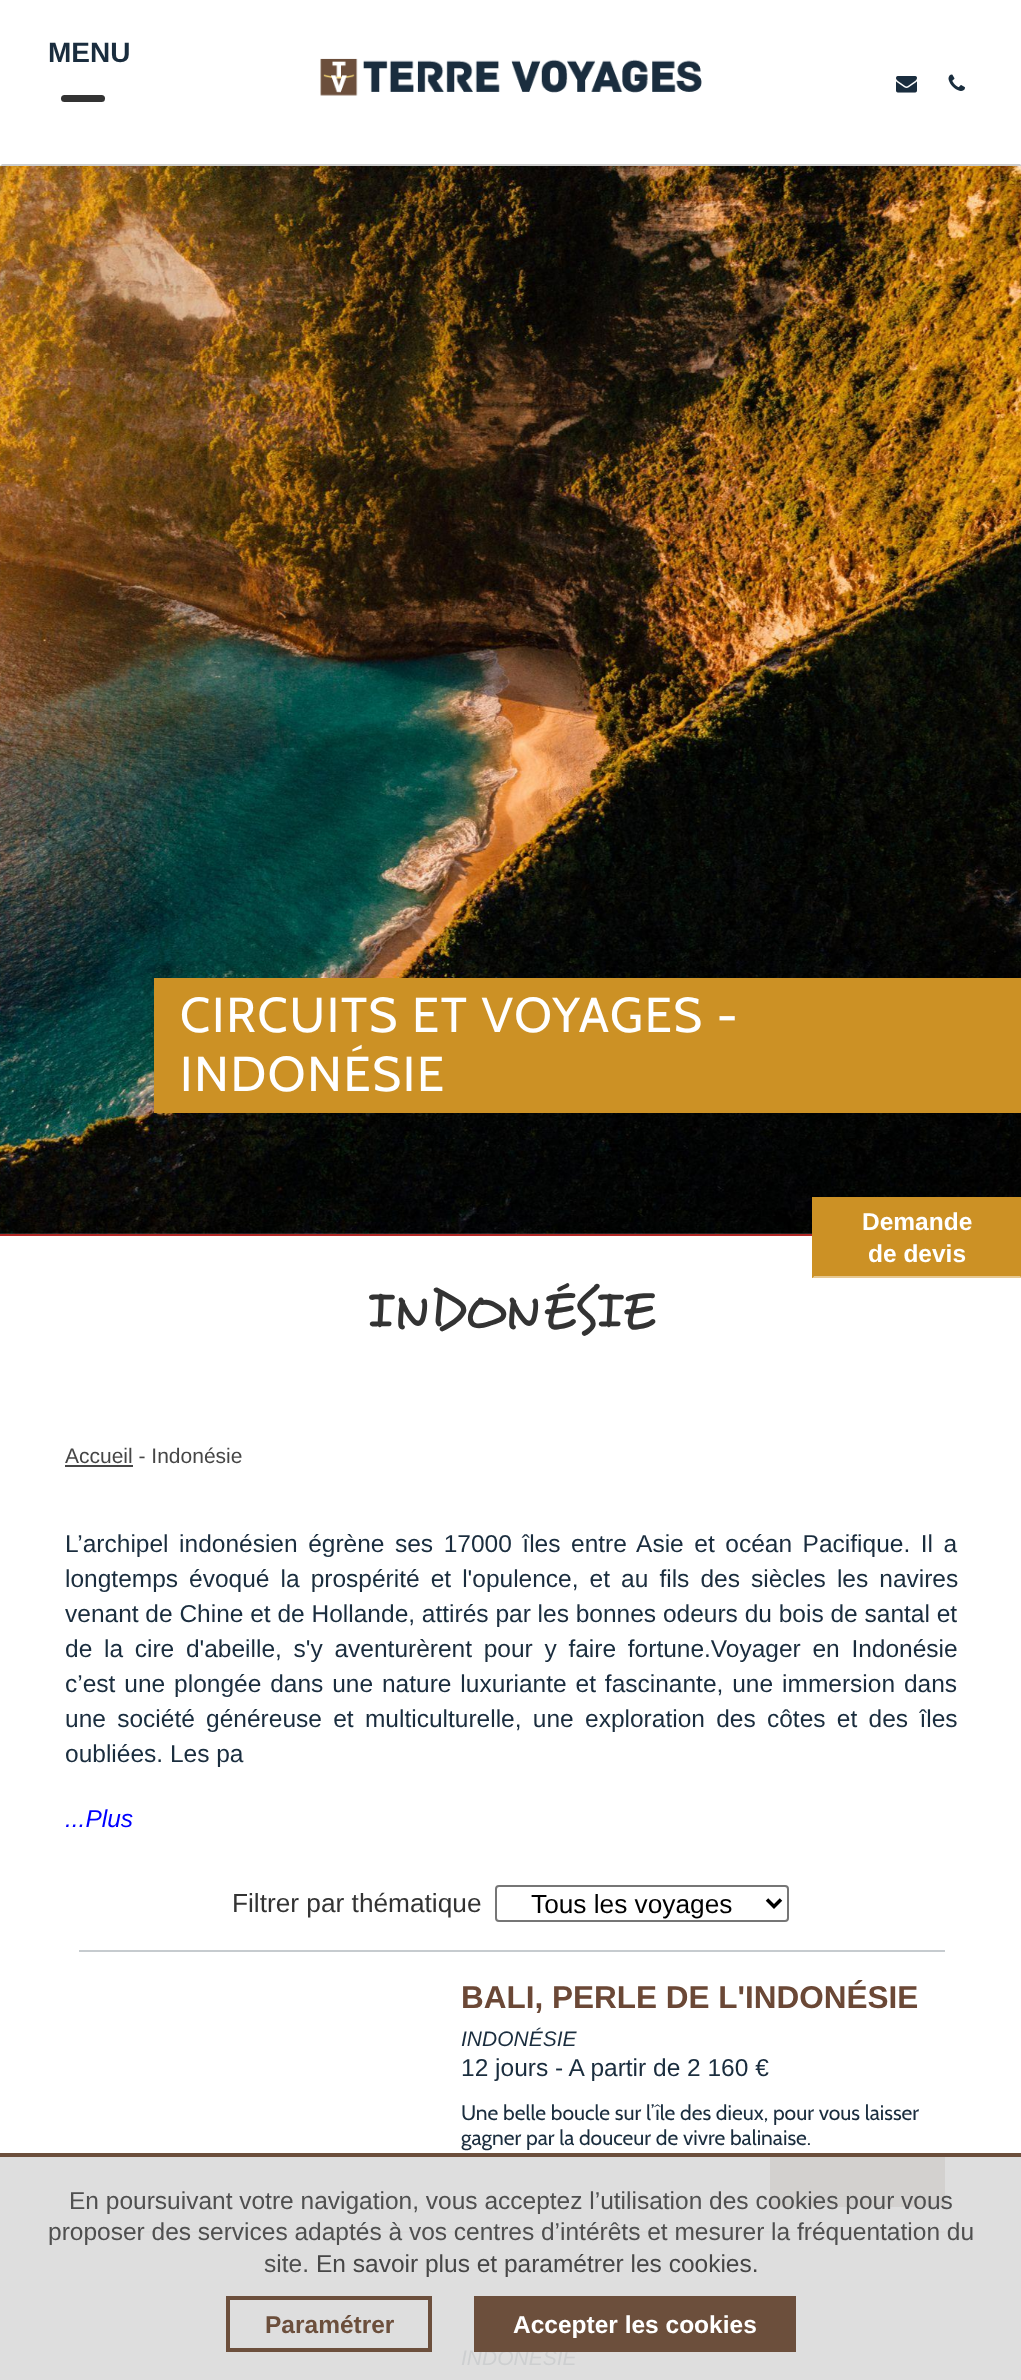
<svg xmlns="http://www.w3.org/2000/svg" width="1021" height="2380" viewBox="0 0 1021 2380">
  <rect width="100%" height="100%" fill="#ffffff"/>
  <rect x="0" y="2157" width="1021" height="223" fill="#dedede"/>
  <path d="M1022 166H0L2 164H1020Z" fill="#cccccc"/>
  <text x="48" y="62" font-family="Liberation Sans" font-size="28" font-weight="bold" fill="#1a2d3e">MENU</text>
  <rect x="61" y="95" width="44" height="7" rx="3.5" fill="#333333"/>
  <image x="320" y="58" width="382" height="38" href="img1.png"/>
  <image x="896" y="76" width="21" height="17" href="img2.png"/>
  <image x="948" y="74" width="17" height="17" href="img3.png"/>
  <image x="0" y="166" width="1021" height="1068" href="img4.png"/>
  <rect x="154" y="978" width="867" height="135" fill="#cc9125"/>
  <text x="180" y="1032" font-family="Cabin" font-size="49" letter-spacing="1.75" fill="#ffffff">CIRCUITS ET VOYAGES -</text>
  <text x="180" y="1091" font-family="Cabin" font-size="49" letter-spacing="1.75" fill="#ffffff">INDONÉSIE</text>
  <rect x="0" y="1234" width="812" height="2" fill="#b02826"/>
  <text x="367" y="1325" font-family="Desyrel" font-size="54" letter-spacing="1.75" fill="#333333">INDONÉSIE</text>
  <text x="65" y="1463" font-family="Liberation Sans" font-size="21" fill="#464646">Accueil - Indonésie</text>
  <rect x="65" y="1465" width="68" height="2" fill="#464646"/>
  <text x="65" y="1552" word-spacing="3.75" font-family="Liberation Sans" font-size="24.5" fill="#1a2d3e">L’archipel indonésien égrène ses 17000 îles entre Asie et océan Pacifique. Il a</text>
  <text x="65" y="1587" word-spacing="4.25" font-family="Liberation Sans" font-size="24.5" fill="#1a2d3e">longtemps évoqué la prospérité et l'opulence, et au fils des siècles les navires</text>
  <text x="65" y="1622" font-family="Liberation Sans" font-size="24.5" fill="#1a2d3e">venant de Chine et de Hollande, attirés par les bonnes odeurs du bois de santal et</text>
  <text x="65" y="1657" word-spacing="4.9" font-family="Liberation Sans" font-size="24.5" fill="#1a2d3e">de la cire d'abeille, s'y aventurèrent pour y faire fortune.Voyager en Indonésie</text>
  <text x="65" y="1692" word-spacing="2.1" font-family="Liberation Sans" font-size="24.5" fill="#1a2d3e">c’est une plongée dans une nature luxuriante et fascinante, une immersion dans</text>
  <text x="65" y="1727" word-spacing="4.5" font-family="Liberation Sans" font-size="24.5" fill="#1a2d3e">une société généreuse et multiculturelle, une exploration des côtes et des îles</text>
  <text x="65" y="1762" font-family="Liberation Sans" font-size="24.5" fill="#1a2d3e">oubliées. Les pa</text>
  <text x="65" y="1827" font-family="Liberation Sans" font-size="24.5" font-style="italic" fill="#0000ff">...Plus</text>
  <rect x="812" y="1197" width="209" height="81" fill="#cc9125"/>
  <path d="M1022 1278H812L814 1276H1020Z" fill="#e6c892"/>
  <path d="M812 1278V1197L814 1199V1276Z" fill="#cc9125"/>
  <text x="862" y="1230" font-family="Liberation Sans" font-size="24.5" font-weight="bold" fill="#ffffff">Demande</text>
  <text x="868" y="1262" font-family="Liberation Sans" font-size="24.5" font-weight="bold" fill="#ffffff">de devis</text>
  <text x="232" y="1912" font-family="Liberation Sans" font-size="26.25" fill="#333333">Filtrer par thématique</text>
  <rect x="496" y="1886" width="292" height="35" rx="3" fill="none" stroke="#767676" stroke-width="2"/>
  <path d="M767 1899.5L774 1906.5L781 1899.5" fill="none" stroke="#000000" stroke-width="3.5"/>
  <text x="531" y="1913" font-family="Liberation Sans" font-size="26.25" fill="#000000">Tous les voyages</text>
  <rect x="79" y="1950" width="866" height="2" fill="#c6cbcf"/>
  <text x="461" y="2008" font-family="Liberation Sans" font-size="31.5" font-weight="bold" fill="#6b4836">BALI, PERLE DE L'INDONÉSIE</text>
  <text x="461" y="2046" font-family="Liberation Sans" font-size="21" font-style="italic" fill="#1a2d3e">INDONÉSIE</text>
  <text x="461" y="2076" font-family="Liberation Sans" font-size="24.5" fill="#1a2d3e">12 jours - A partir de 2 160 €</text>
  <text x="461" y="2120" font-family="Cabin" font-size="21" fill="#1a2d3e">Une belle boucle sur l’île des dieux, pour vous laisser</text>
  <text x="461" y="2145" font-family="Cabin" font-size="21" fill="#1a2d3e">gagner par la douceur de vivre balinaise.</text>
  <rect x="770" y="2157" width="175" height="50" fill="#d3d1cf"/>
  <rect x="79" y="2231" width="866" height="2" fill="#dadada"/>
  <text x="461" y="2365" font-family="Liberation Sans" font-size="21" font-style="italic" fill="#cdcfd0">INDONÉSIE</text>
  <rect x="0" y="2153" width="1021" height="4" fill="#6c4f3c"/>
  <text x="69" y="2209" font-family="Liberation Sans" font-size="24.5" fill="#4f4f4f">En poursuivant votre navigation, vous acceptez l’utilisation des cookies pour vous</text>
  <text x="48" y="2240" font-family="Liberation Sans" font-size="24.5" fill="#4f4f4f">proposer des services adaptés à vos centres d’intérêts et mesurer la fréquentation du</text>
  <text x="264" y="2272" font-family="Liberation Sans" font-size="24.5" fill="#4f4f4f">site.</text>
  <text x="316" y="2272" font-family="Liberation Sans" font-size="24.5" fill="#464646">En savoir plus et paramétrer les cookies.</text>
  <rect x="228" y="2298" width="202" height="52" fill="none" stroke="#6c4f3c" stroke-width="4"/>
  <text x="265" y="2333" font-family="Liberation Sans" font-size="24.5" font-weight="bold" fill="#6c4f3c">Paramétrer</text>
  <rect x="474" y="2296" width="322" height="56" fill="#6c4f3c"/>
  <text x="513" y="2333" font-family="Liberation Sans" font-size="24.5" font-weight="bold" fill="#ffffff">Accepter les cookies</text>
</svg>
